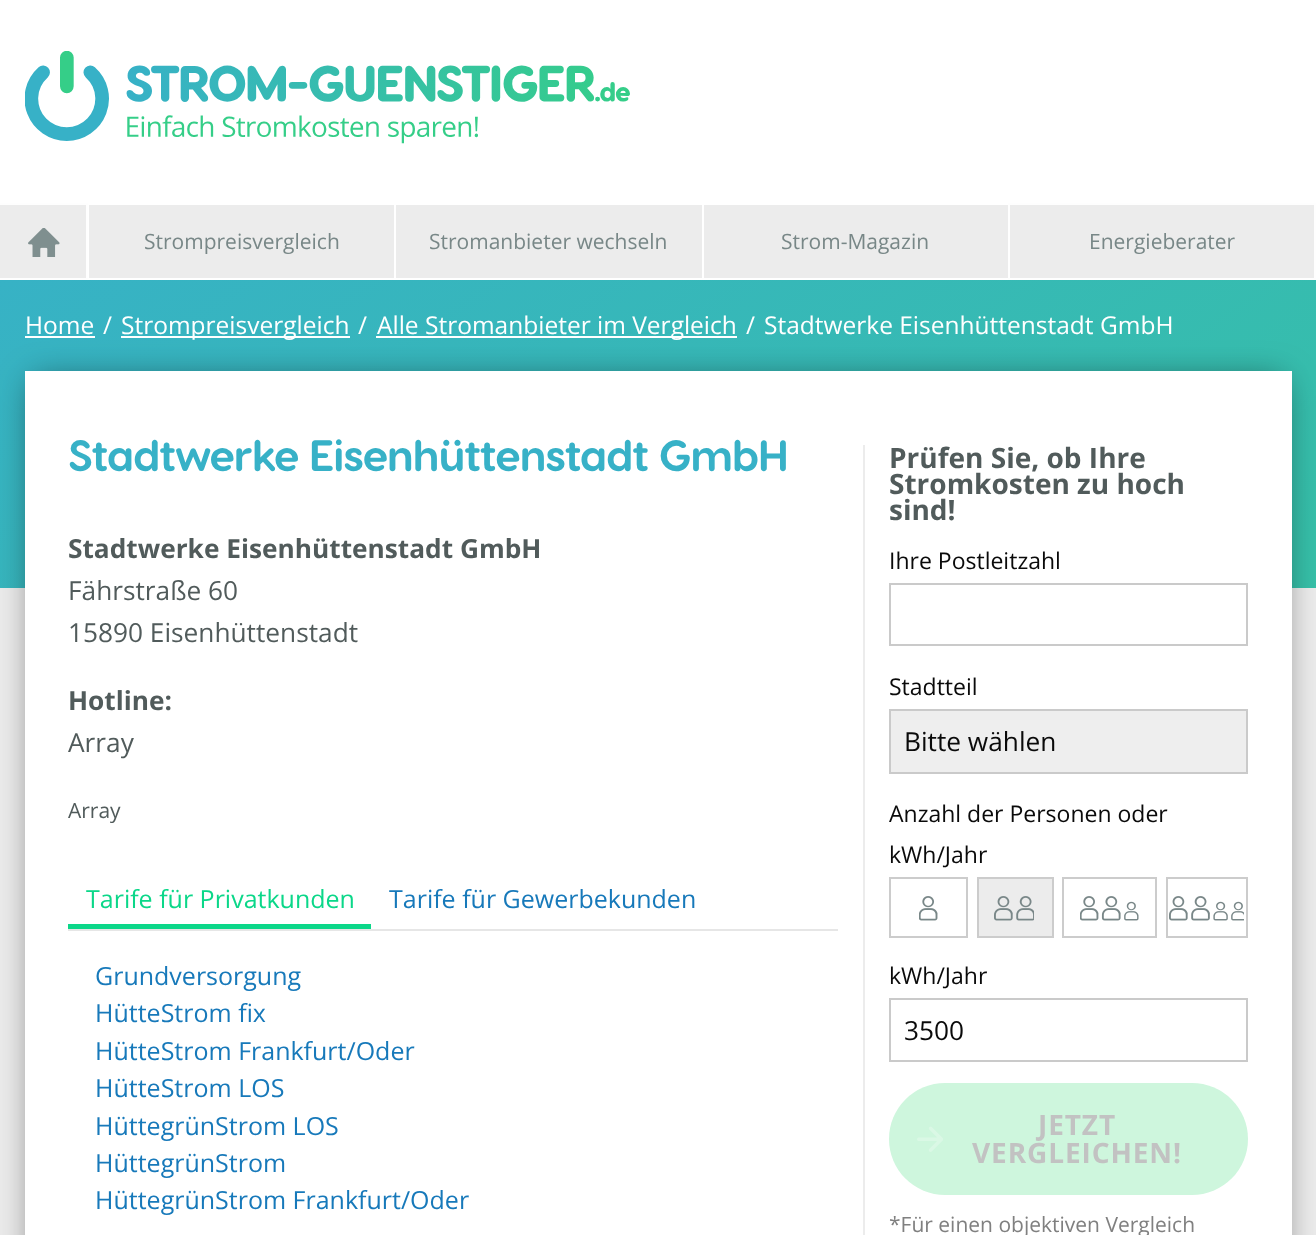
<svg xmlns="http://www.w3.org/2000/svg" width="1316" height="1235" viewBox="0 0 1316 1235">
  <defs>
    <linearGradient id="g1" gradientUnits="userSpaceOnUse" x1="726" y1="-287" x2="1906" y2="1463"><stop offset="0" stop-color="#37b1c7"/><stop offset="1" stop-color="#35ce88"/></linearGradient>
    <filter id="blur1" x="-50%" y="-200%" width="200%" height="500%"><feGaussianBlur stdDeviation="17.5"/></filter>
  </defs>
  <rect width="100%" height="100%" fill="#ececec"/>
  <rect x="0" y="0" width="1316" height="203" fill="#ffffff"/>
  <image x="25" y="51" width="605" height="93" href="img1.png"/>
  <rect x="0" y="203" width="88" height="2" fill="#fefefe"/>
  <rect x="86" y="203" width="2" height="77" fill="#fefefe"/>
  <rect x="0" y="278" width="88" height="2" fill="#fefefe"/>
  <image x="28" y="228" width="32" height="29" href="img2.png"/>
  <rect x="88" y="203" width="920" height="2" fill="#ffffff"/>
  <rect x="88" y="278" width="920" height="2" fill="#ffffff"/>
  <rect x="88" y="203" width="2" height="77" fill="#ffffff"/>
  <rect x="89" y="205" width="1" height="73" fill="#ececec"/>
  <text x="144" y="249" font-family="Open Sans" font-size="21" fill="#788787">Strompreisvergleich</text>
  <rect x="394" y="203" width="2" height="77" fill="#ffffff"/>
  <text x="429" y="249" font-family="Open Sans" font-size="21" fill="#788787">Stromanbieter wechseln</text>
  <rect x="702" y="203" width="2" height="77" fill="#ffffff"/>
  <text x="781" y="249" font-family="Open Sans" font-size="21" fill="#788787">Strom-Magazin</text>
  <rect x="1009" y="204" width="306" height="75" fill="none" stroke="#fefefe" stroke-width="2"/>
  <text x="1089" y="249" font-family="Open Sans" font-size="21" fill="#788787">Energieberater</text>
  <rect x="0" y="280" width="1316" height="308" fill="url(#g1)"/>
  <rect x="33" y="380" width="1250" height="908" fill="#000000" fill-opacity="0.5" filter="url(#blur1)"/>
  <text x="25" y="334" font-family="Open Sans" font-size="24.5" fill="#ffffff">Home</text>
  <rect x="25" y="336" width="70" height="2" fill="#ffffff"/>
  <text x="103" y="334" font-family="Open Sans" font-size="24.5" fill="#ffffff">/</text>
  <rect x="121" y="336" width="229" height="2" fill="#ffffff"/>
  <text x="121" y="334" font-family="Open Sans" font-size="24.5" fill="#ffffff">Strompreisvergleich</text>
  <text x="358" y="334" font-family="Open Sans" font-size="24.5" fill="#ffffff">/</text>
  <rect x="376" y="336" width="361" height="2" fill="#ffffff"/>
  <text x="377" y="334" font-family="Open Sans" font-size="24.5" fill="#ffffff">Alle Stromanbieter im Vergleich</text>
  <text x="746" y="334" font-family="Open Sans" font-size="24.5" fill="#ffffff">/</text>
  <text x="764" y="334" font-family="Open Sans" font-size="24.5" fill="#ffffff">Stadtwerke Eisenhüttenstadt GmbH</text>
  <rect x="25" y="371" width="1267" height="864" fill="#ffffff"/>
  <text x="68" y="471" font-family="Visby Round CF" font-size="43.75" font-weight="bold" letter-spacing="-1.05" fill="#37b1c7">Stadtwerke Eisenhüttenstadt GmbH</text>
  <text x="68" y="558" font-family="Open Sans" font-size="26.25" font-weight="bold" fill="#515b5b">Stadtwerke Eisenhüttenstadt GmbH</text>
  <text x="68" y="600" font-family="Open Sans" font-size="26.25" fill="#515b5b">Fährstraße 60</text>
  <text x="68" y="642" font-family="Open Sans" font-size="26.25" fill="#515b5b">15890 Eisenhüttenstadt</text>
  <text x="68" y="710" font-family="Open Sans" font-size="26.25" font-weight="bold" fill="#515b5b">Hotline:</text>
  <text x="68" y="752" font-family="Open Sans" font-size="26.25" fill="#515b5b">Array</text>
  <text x="68" y="818" font-family="Open Sans" font-size="21" fill="#515b5b">Array</text>
  <rect x="68" y="929" width="770" height="2" fill="#e6e6e6"/>
  <text x="86" y="908" font-family="Open Sans" font-size="25" fill="#0bd789">Tarife für Privatkunden</text>
  <rect x="68" y="924" width="303" height="5" fill="#0bd789"/>
  <text x="389" y="908" font-family="Open Sans" font-size="25" fill="#1779ba">Tarife für Gewerbekunden</text>
  <text x="95" y="985" font-family="Open Sans" font-size="25" fill="#1779ba">Grundversorgung</text>
  <text x="95" y="1022" font-family="Open Sans" font-size="25" fill="#1779ba">HütteStrom fix</text>
  <text x="95" y="1060" font-family="Open Sans" font-size="25" fill="#1779ba">HütteStrom Frankfurt/Oder</text>
  <text x="95" y="1097" font-family="Open Sans" font-size="25" fill="#1779ba">HütteStrom LOS</text>
  <text x="95" y="1135" font-family="Open Sans" font-size="25" fill="#1779ba">HüttegrünStrom LOS</text>
  <text x="95" y="1172" font-family="Open Sans" font-size="25" fill="#1779ba">HüttegrünStrom</text>
  <text x="95" y="1209" font-family="Open Sans" font-size="25" fill="#1779ba">HüttegrünStrom Frankfurt/Oder</text>
  <rect x="863" y="445" width="2" height="790" fill="#ececec"/>
  <text x="889" y="468" font-family="Open Sans" font-size="28" font-weight="bold" fill="#515b5b">Prüfen Sie, ob Ihre</text>
  <text x="889" y="494" font-family="Open Sans" font-size="28" font-weight="bold" fill="#515b5b">Stromkosten zu hoch</text>
  <text x="889" y="520" font-family="Open Sans" font-size="28" font-weight="bold" fill="#515b5b">sind!</text>
  <text x="889" y="569" font-family="Open Sans" font-size="23" fill="#0a0a0a">Ihre Postleitzahl</text>
  <rect x="890" y="584" width="357" height="61" fill="none" stroke="#cacaca" stroke-width="2"/>
  <text x="889" y="695" font-family="Open Sans" font-size="23" fill="#0a0a0a">Stadtteil</text>
  <rect x="890" y="710" width="357" height="63" fill="#eeeeee" stroke="#cacaca" stroke-width="2"/>
  <text x="904" y="751" font-family="Open Sans" font-size="26.25" fill="#0a0a0a">Bitte wählen</text>
  <text x="889" y="822" font-family="Open Sans" font-size="23" fill="#0a0a0a">Anzahl der Personen oder</text>
  <text x="889" y="863" font-family="Open Sans" font-size="23" fill="#0a0a0a">kWh/Jahr</text>
  <image x="919" y="896" width="19" height="25" href="img3.png"/>
  <rect x="890" y="878" width="77" height="59" fill="none" stroke="#cccccc" stroke-width="2"/>
  <rect x="979" y="879" width="73" height="57" fill="#ececec"/>
  <image x="994" y="896" width="40" height="25" href="img4.png"/>
  <rect x="978" y="878" width="75" height="59" fill="none" stroke="#cccccc" stroke-width="2"/>
  <image x="1080" y="896" width="59" height="25" href="img5.png"/>
  <rect x="1063" y="878" width="93" height="59" fill="none" stroke="#cccccc" stroke-width="2"/>
  <image x="1169" y="896" width="75" height="25" href="img6.png"/>
  <rect x="1167" y="878" width="80" height="59" fill="none" stroke="#cccccc" stroke-width="2"/>
  <text x="889" y="984" font-family="Open Sans" font-size="23" fill="#0a0a0a">kWh/Jahr</text>
  <rect x="890" y="999" width="357" height="62" fill="none" stroke="#cacaca" stroke-width="2"/>
  <text x="904" y="1040" font-family="Open Sans" font-size="26.25" fill="#0a0a0a">3500</text>
  <rect x="889" y="1083" width="359" height="112" rx="56" fill="#cef6dd"/>
  <image x="917" y="1126" width="26" height="26" href="img7.png"/>
  <text x="1038" y="1135" font-family="Open Sans" font-size="28" font-weight="bold" letter-spacing="0.9" fill="#c2c2c2">JETZT</text>
  <text x="972" y="1163" font-family="Open Sans" font-size="28" font-weight="bold" letter-spacing="0.9" fill="#c2c2c2">VERGLEICHEN!</text>
  <text x="889" y="1232" font-family="Open Sans" font-size="21" fill="#808080">*Für einen objektiven Vergleich</text>
</svg>
